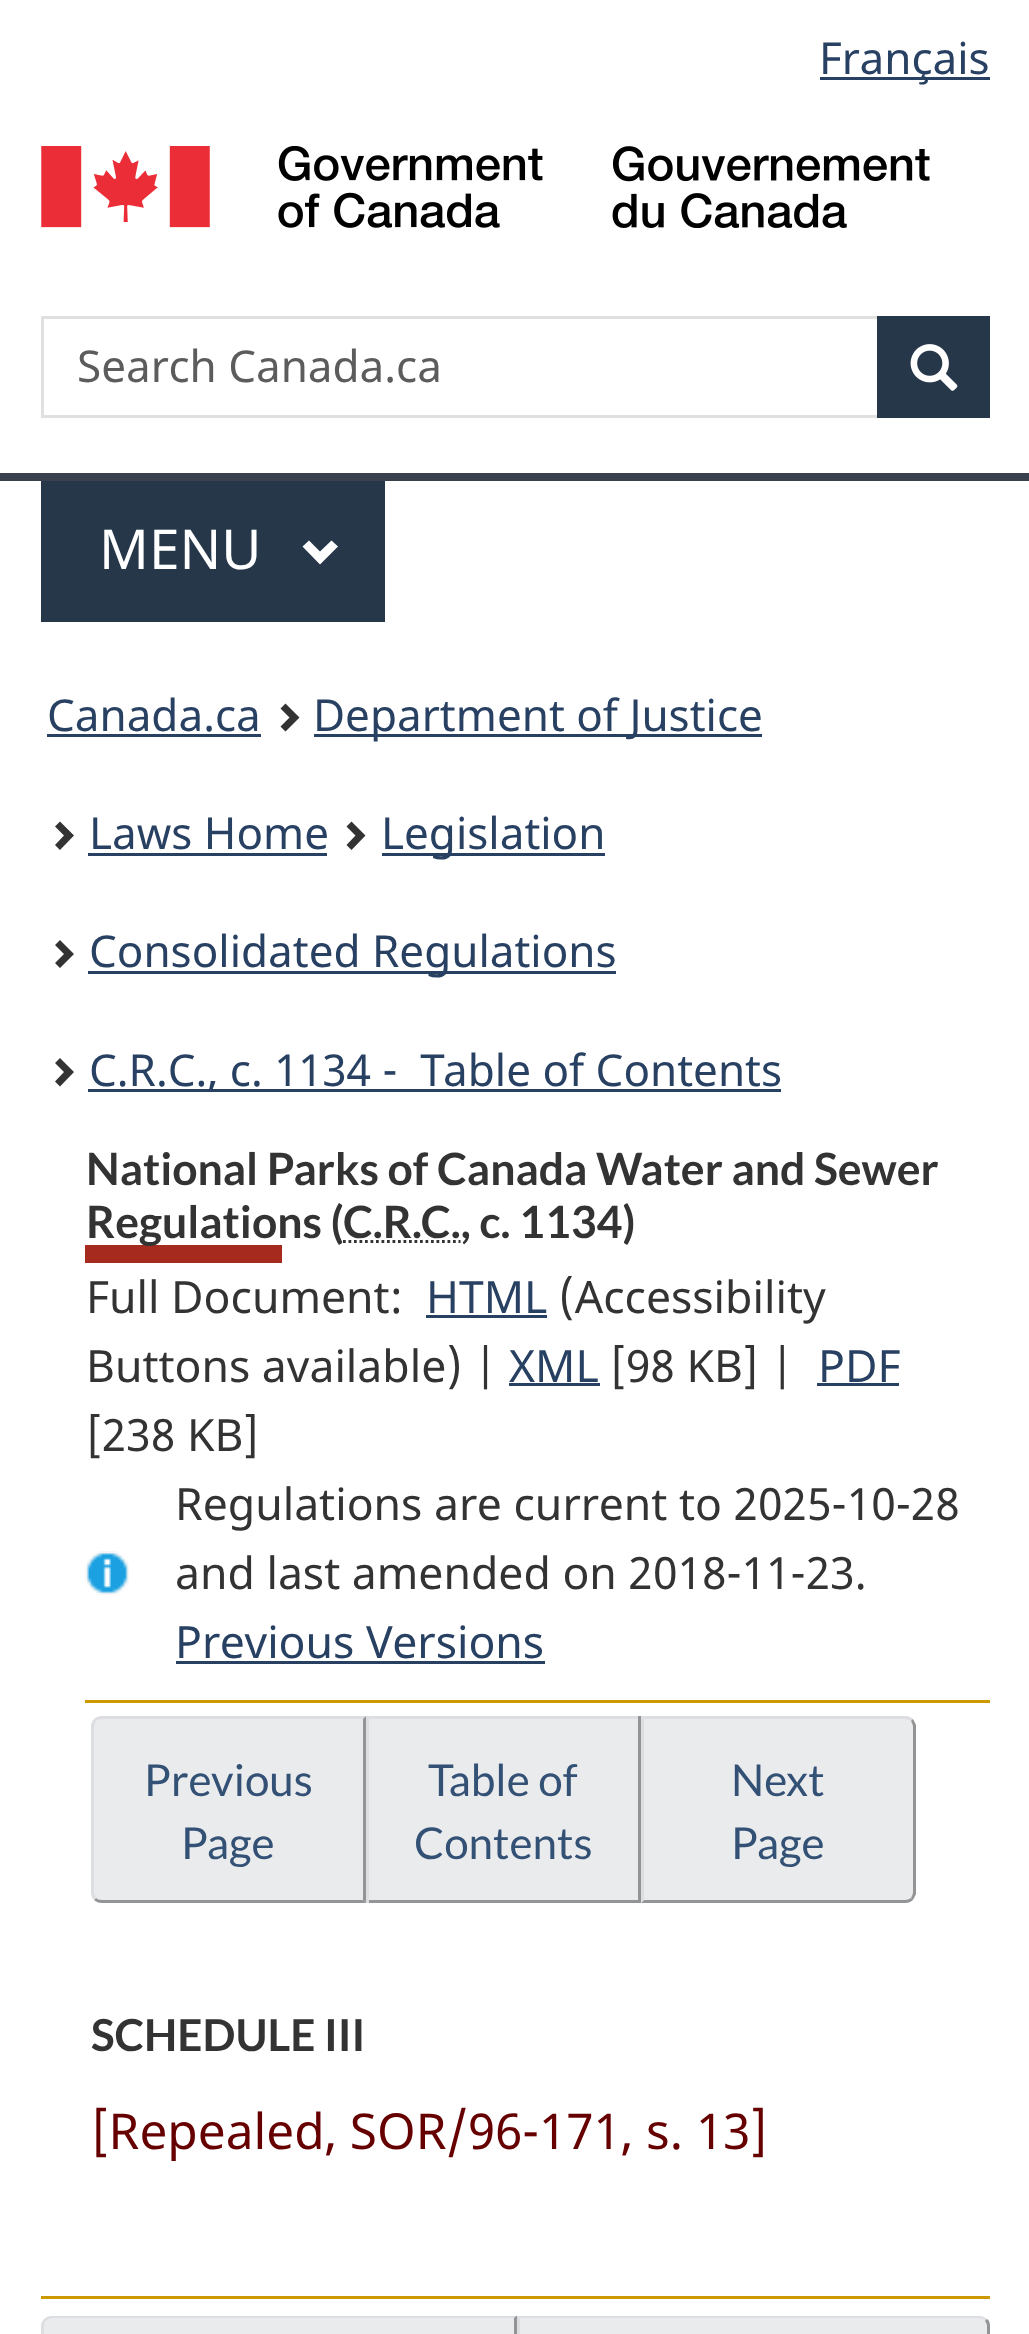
<svg xmlns="http://www.w3.org/2000/svg" width="1029" height="2334" viewBox="0 0 1029 2334">
  <rect width="100%" height="100%" fill="#ffffff"/>
  <rect x="820" y="77" width="170" height="3" fill="#284162"/>
  <text x="819" y="74" font-family="Noto Sans" font-size="44" fill="#284162">Français</text>
  <image x="41" y="146" width="889" height="82" href="img1.png"/>
  <rect x="42.5" y="317.5" width="946" height="99" fill="none" stroke="#e0e0e0" stroke-width="3"/>
  <text x="77" y="382" font-family="Noto Sans" font-size="44" fill="#5c5c5c">Search Canada.ca</text>
  <rect x="877" y="316" width="113" height="102" fill="#26374a"/>
  <image x="910" y="344" width="48" height="47" href="img2.png"/>
  <rect x="0" y="473" width="1029" height="8" fill="#38414d"/>
  <rect x="41" y="481" width="344" height="141" fill="#26374a"/>
  <text x="99" y="569" font-family="Noto Sans" font-size="55" fill="#ffffff">MENU</text>
  <path d="M338 546.5L320 564.5L302.5 546.5L309 540.5L320 551.5L331.5 540.5Z" fill="#ffffff"/>
  <text x="47" y="731" font-family="Noto Sans" font-size="44" fill="#284162">Canada.ca</text>
  <rect x="47" y="734" width="214" height="3" fill="#284162"/>
  <path d="M299.5 717.5L285.5 731.5L280.5 726.5L289.5 717.5L280.5 708.5L285.5 703.5Z" fill="#333333"/>
  <rect x="314" y="734" width="448" height="3" fill="#284162"/>
  <text x="313" y="731" font-family="Noto Sans" font-size="44" fill="#284162">Department of Justice</text>
  <path d="M74 835.5L60 850L55 845L64 835.5L55 826.5L60 821.5Z" fill="#333333"/>
  <text x="89" y="849" font-family="Noto Sans" font-size="44" fill="#284162">Laws Home</text>
  <rect x="88" y="853" width="239" height="3" fill="#284162"/>
  <path d="M365.5 835.5L351.5 850L346.5 845L355.5 835.5L346.5 826.5L351.5 821.5Z" fill="#333333"/>
  <rect x="382" y="853" width="223" height="3" fill="#284162"/>
  <text x="381" y="849" font-family="Noto Sans" font-size="44" fill="#284162">Legislation</text>
  <path d="M74 954L60 968L55 963L64 954L55 945L60 940Z" fill="#333333"/>
  <rect x="88" y="971" width="528" height="3" fill="#284162"/>
  <text x="89" y="967" font-family="Noto Sans" font-size="44" fill="#284162">Consolidated Regulations</text>
  <path d="M74 1072L60 1086.5L55 1081.5L64 1072L55 1063L60 1058Z" fill="#333333"/>
  <rect x="88" y="1089" width="693" height="3" fill="#284162"/>
  <text x="89" y="1086" font-family="Noto Sans" font-size="44" fill="#284162" xml:space="preserve">C.R.C., c. 1134 -  Table of Contents</text>
  <rect x="85" y="1245" width="197" height="18" fill="#a62a1e"/>
  <text x="86" y="1185" font-family="Lato" font-size="44.5" font-weight="bold" fill="#333333">National Parks of Canada Water and Sewer</text>
  <text x="86" y="1238" font-family="Lato" font-size="44.5" font-weight="bold" fill="#333333">Regulations (C.R.C., c. 1134)</text>
  <path d="M343 1241.5H460.5" fill="none" stroke="#333333" stroke-width="2.8" stroke-dasharray="2.75 2.75"/>
  <text x="86" y="1313" font-family="Noto Sans" font-size="44.5" fill="#333333">Full Document:</text>
  <text x="426" y="1313" font-family="Noto Sans" font-size="44.5" fill="#284162">HTML</text>
  <rect x="426" y="1315" width="121" height="3" fill="#284162"/>
  <text x="559" y="1313" font-family="Noto Sans" font-size="44.5" fill="#333333">(Accessibility</text>
  <text x="86" y="1382" font-family="Noto Sans" font-size="44.5" fill="#333333">Buttons available) |</text>
  <text x="509" y="1382" font-family="Noto Sans" font-size="44.5" fill="#284162">XML</text>
  <rect x="509" y="1383" width="91" height="3" fill="#284162"/>
  <text x="610" y="1382" font-family="Noto Sans" font-size="44.5" fill="#333333">[98 KB] |</text>
  <text x="818" y="1382" font-family="Noto Sans" font-size="44.5" fill="#284162">PDF</text>
  <rect x="817" y="1383" width="82" height="3" fill="#284162"/>
  <text x="86" y="1451" font-family="Noto Sans" font-size="44.5" fill="#333333">[238 KB]</text>
  <image x="85" y="1551" width="44" height="44" href="img3.png"/>
  <text x="175" y="1520" font-family="Noto Sans" font-size="44.5" fill="#333333">Regulations are current to 2025-10-28</text>
  <text x="175" y="1589" font-family="Noto Sans" font-size="44.5" fill="#333333">and last amended on 2018-11-23.</text>
  <text x="175" y="1658" font-family="Noto Sans" font-size="44.5" fill="#284162">Previous Versions</text>
  <rect x="176" y="1661" width="369" height="3" fill="#284162"/>
  <rect x="85" y="1700" width="905" height="3" fill="#cc9900"/>
  <path d="M102 1716H366V1903H102C96 1903 91 1898 91 1892V1727C91 1721 96 1716 102 1716Z" fill="#eaebed"/>
  <path d="M102 1716C99 1716 96 1717 94 1719L96 1721C97 1720 99 1719 102 1719H363L366 1716Z" fill="#dcdee1"/>
  <path d="M366 1716V1903L363 1900V1719Z" fill="#939496"/>
  <path d="M366 1903L363 1900H102C99 1900 97 1899 96 1898L94 1900C96 1902 99 1903 102 1903Z" fill="#939496"/>
  <path d="M94 1719C92 1721 91 1724 91 1727V1892C91 1895 92 1898 94 1900L96 1898C95 1896 94 1894 94 1892V1727C94 1725 95 1723 96 1721Z" fill="#dcdee1"/>
  <text x="144" y="1796" font-family="Lato" font-size="44" fill="#335075">Previous</text>
  <text x="181" y="1859" font-family="Lato" font-size="44" fill="#335075">Page</text>
  <rect x="369" y="1719" width="269" height="181" fill="#eaebed"/>
  <rect x="366" y="1716" width="275" height="3" fill="#dcdee1"/>
  <rect x="638" y="1716" width="3" height="187" fill="#939496"/>
  <rect x="366" y="1900" width="275" height="3" fill="#939496"/>
  <rect x="366" y="1716" width="3" height="187" fill="#dcdee1"/>
  <text x="428" y="1796" font-family="Lato" font-size="44" fill="#335075">Table of</text>
  <text x="414" y="1859" font-family="Lato" font-size="44" fill="#335075">Contents</text>
  <path d="M641 1716H905C911 1716 916 1721 916 1727V1892C916 1898 911 1903 905 1903H641Z" fill="#eaebed"/>
  <path d="M641 1716L644 1719H905C907 1719 909 1720 911 1721L913 1719C911 1717 908 1716 905 1716Z" fill="#dcdee1"/>
  <path d="M916 1894C915 1896 914 1898 913 1900L911 1898C912 1896 913 1894 913 1892V1727C913 1725 912 1723 911 1721L913 1719C914 1721 915 1723 916 1725Z" fill="#939496"/>
  <path d="M641 1903H905C908 1903 911 1902 913 1900L911 1898C909 1899 907 1900 905 1900H644Z" fill="#939496"/>
  <path d="M641 1716V1903L644 1900V1719Z" fill="#dcdee1"/>
  <text x="731" y="1796" font-family="Lato" font-size="44" fill="#335075">Next</text>
  <text x="731" y="1859" font-family="Lato" font-size="44" fill="#335075">Page</text>
  <text x="91" y="2051" font-family="Lato" font-size="44" font-weight="bold" fill="#333333">SCHEDULE III</text>
  <text x="91" y="2149" font-family="Noto Sans" font-size="49.5" fill="#660000">[Repealed, SOR/96-171, s. 13]</text>
  <rect x="41" y="2296" width="949" height="3" fill="#cc9900"/>
  <path d="M52 2316H517V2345H52C46 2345 41 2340 41 2334V2327C41 2321 46 2316 52 2316Z" fill="#eaebed"/>
  <path d="M52 2316C49 2316 46 2317 44 2319L46 2321C48 2319 50 2318 52 2318H514L516 2316Z" fill="#dcdee1"/>
  <path d="M517 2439V2316H516L514 2318V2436Z" fill="#939496"/>
  <path d="M41 2324C42 2322 43 2320 44 2319L46 2321C45 2322 44 2324 44 2326V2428C44 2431 45 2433 47 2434L45 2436C43 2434 42 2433 41 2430Z" fill="#dcdee1"/>
  <path d="M517 2316H979C985 2316 990 2321 990 2327V2334C990 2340 985 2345 979 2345H517Z" fill="#eaebed"/>
  <path d="M520 2318H979C982 2318 984 2319 985 2321L987 2319C985 2317 982 2316 979 2316H518Z" fill="#dcdee1"/>
  <path d="M987 2319C989 2320 990 2323 990 2326V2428C990 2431 989 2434 987 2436L985 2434C986 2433 987 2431 987 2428V2326C987 2324 986 2322 985 2321Z" fill="#939496"/>
  <path d="M517 2316L520 2318V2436L517 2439Z" fill="#dcdee1"/>
</svg>
